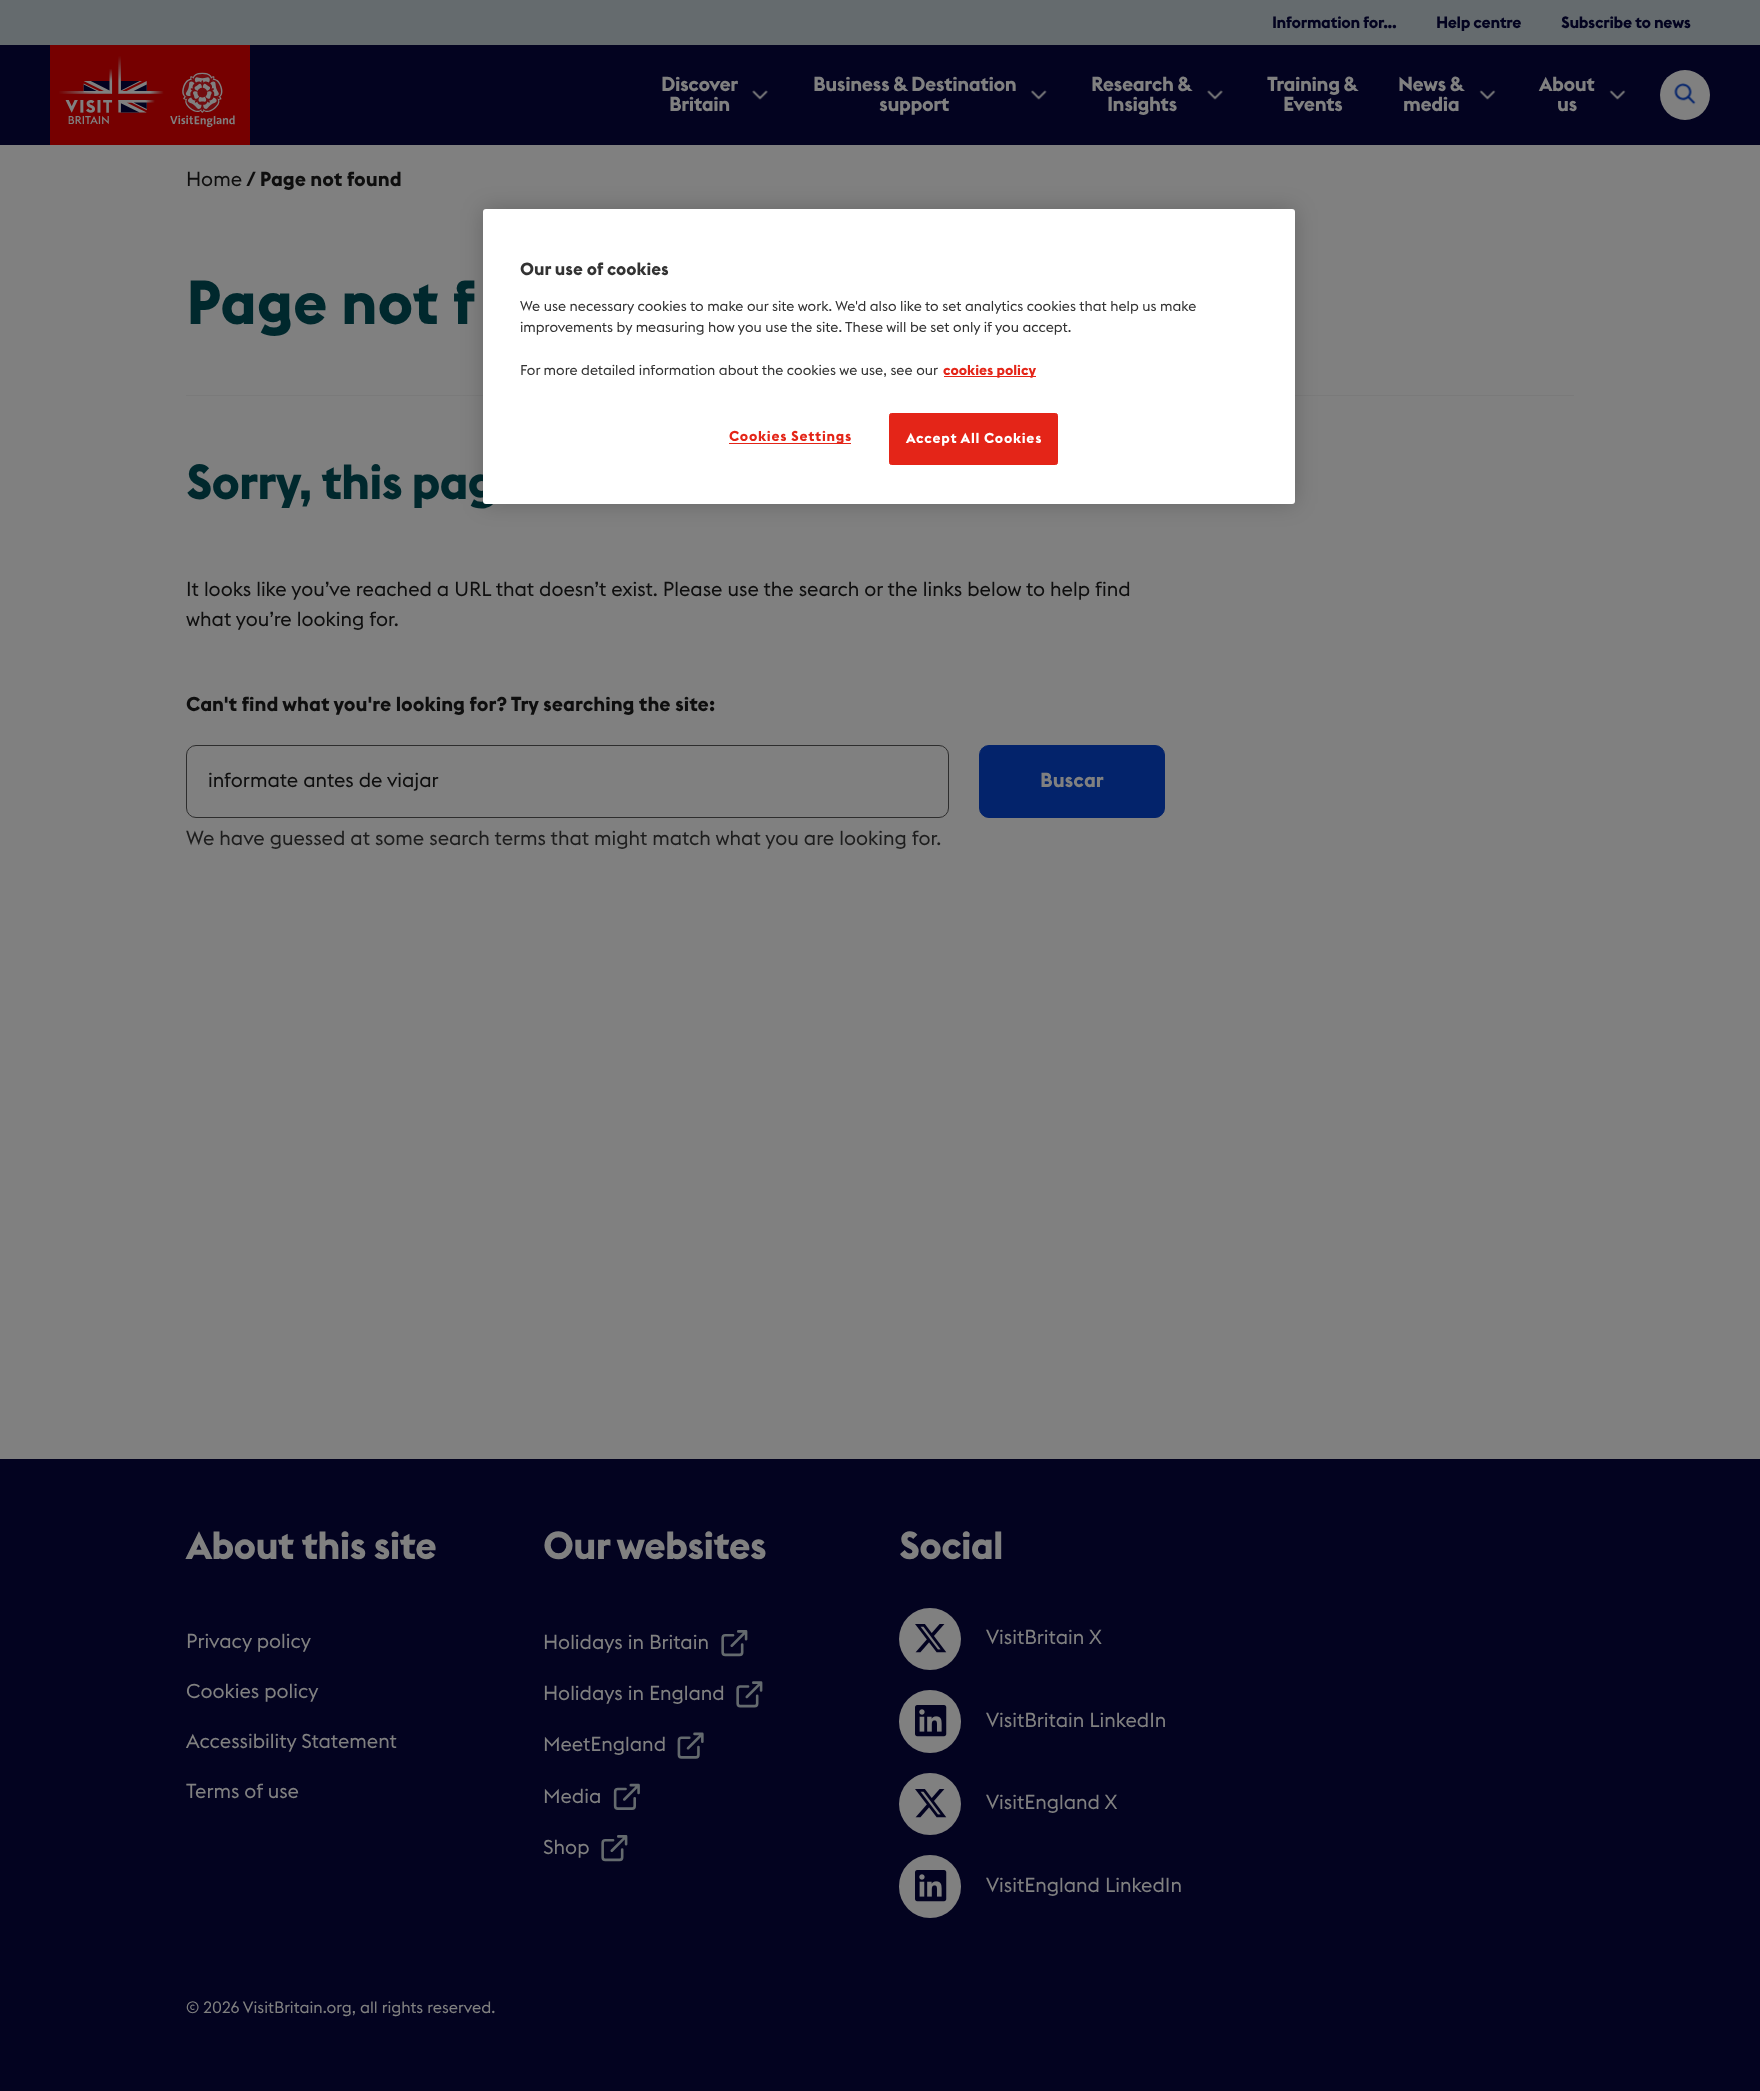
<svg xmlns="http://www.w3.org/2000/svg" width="1760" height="2091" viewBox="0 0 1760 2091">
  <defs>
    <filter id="blur1" x="-50%" y="-200%" width="200%" height="500%"><feGaussianBlur stdDeviation="11"/></filter>
  </defs>
  <rect width="100%" height="100%" fill="#808080"/>
  <rect x="0" y="0" width="1760" height="45" fill="#656b6e"/>
  <text x="1272" y="28" font-family="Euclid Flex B" font-size="16.25" font-weight="bold" letter-spacing="-0.3" fill="#030320">Information for...</text>
  <text x="1436" y="28" font-family="Euclid Flex B" font-size="16.25" font-weight="bold" letter-spacing="-0.3" fill="#030320">Help centre</text>
  <text x="1561" y="28" font-family="Euclid Flex B" font-size="16.25" font-weight="bold" letter-spacing="-0.3" fill="#030320">Subscribe to news</text>
  <rect x="0" y="45" width="1760" height="100" fill="#030320"/>
  <rect x="50" y="45" width="200" height="100" fill="#760000"/>
  <image x="59" y="56" width="176" height="71" href="img1.png"/>
  <text x="661" y="91" font-family="Euclid Flex B" font-size="20" font-weight="bold" letter-spacing="-0.4" fill="#808080">Discover</text>
  <text x="669" y="111" font-family="Euclid Flex B" font-size="20" font-weight="bold" letter-spacing="-0.4" fill="#808080">Britain</text>
  <image x="752" y="90" width="16" height="10" href="img2.png"/>
  <text x="813" y="91" font-family="Euclid Flex B" font-size="20" font-weight="bold" letter-spacing="-0.4" fill="#808080">Business &amp; Destination</text>
  <text x="879" y="111" font-family="Euclid Flex B" font-size="20" font-weight="bold" letter-spacing="-0.4" fill="#808080">support</text>
  <image x="1031" y="90" width="16" height="10" href="img3.png"/>
  <text x="1091" y="91" font-family="Euclid Flex B" font-size="20" font-weight="bold" letter-spacing="-0.4" fill="#808080">Research &amp;</text>
  <text x="1107" y="111" font-family="Euclid Flex B" font-size="20" font-weight="bold" letter-spacing="-0.4" fill="#808080">Insights</text>
  <image x="1207" y="90" width="16" height="10" href="img2.png"/>
  <text x="1267" y="91" font-family="Euclid Flex B" font-size="20" font-weight="bold" letter-spacing="-0.4" fill="#808080">Training &amp;</text>
  <text x="1283" y="111" font-family="Euclid Flex B" font-size="20" font-weight="bold" letter-spacing="-0.4" fill="#808080">Events</text>
  <text x="1398" y="91" font-family="Euclid Flex B" font-size="20" font-weight="bold" letter-spacing="-0.4" fill="#808080">News &amp;</text>
  <text x="1403" y="111" font-family="Euclid Flex B" font-size="20" font-weight="bold" letter-spacing="-0.4" fill="#808080">media</text>
  <image x="1479" y="90" width="17" height="10" href="img4.png"/>
  <text x="1539" y="91" font-family="Euclid Flex B" font-size="20" font-weight="bold" letter-spacing="-0.4" fill="#808080">About</text>
  <text x="1557" y="111" font-family="Euclid Flex B" font-size="20" font-weight="bold" letter-spacing="-0.4" fill="#808080">us</text>
  <image x="1609" y="90" width="17" height="10" href="img4.png"/>
  <circle cx="1685" cy="95" r="25" fill="#808080"/>
  <image x="1674" y="83" width="22" height="22" href="img5.png"/>
  <text x="186" y="186" font-family="Euclid Flex B" font-size="20" fill="#0e0e0e">Home</text>
  <text x="246" y="186" font-family="Euclid Flex B" font-size="20" font-weight="bold" fill="#0e0e0e">/ Page not found</text>
  <rect x="186" y="395" width="1388" height="1" fill="#7a7a7a"/>
  <text x="186" y="324" font-family="Euclid Flex B" font-size="61.25" font-weight="bold" fill="#00282d">Page not f</text>
  <text x="186" y="499" font-family="Euclid Flex B" font-size="48.75" font-weight="bold" letter-spacing="-1" fill="#00282d">Sorry, this pag</text>
  <text x="186" y="596" font-family="Euclid Flex B" font-size="20" fill="#0e0e0e">It looks like you’ve reached a URL that doesn’t exist. Please use the search or the links below to help find</text>
  <text x="186" y="626" font-family="Euclid Flex B" font-size="20" fill="#0e0e0e">what you’re looking for.</text>
  <text x="186" y="711" font-family="Euclid Flex B" font-size="20" font-weight="bold" fill="#0e0e0e">Can't find what you're looking for? Try searching the site:</text>
  <rect x="186.5" y="745.5" width="762" height="72" rx="9.5" fill="none" stroke="#2d2d2d"/>
  <text x="208" y="787" font-family="Euclid Flex B" font-size="20" fill="#0e0e0e">informate antes de viajar</text>
  <text x="186" y="845" font-family="Euclid Flex B" font-size="20" fill="#1e1e1e">We have guessed at some search terms that might match what you are looking for.</text>
  <rect x="979.5" y="745.5" width="185" height="72" rx="9.5" fill="#03236b" stroke="#03236b"/>
  <text x="1040" y="787" font-family="Euclid Flex B" font-size="20" font-weight="bold" fill="#808080">Buscar</text>
  <rect x="0" y="1459" width="1760" height="632" fill="#030320"/>
  <text x="186" y="1559" font-family="Euclid Flex B" font-size="38.75" font-weight="bold" letter-spacing="-0.75" fill="#808080">About this site</text>
  <text x="186" y="1648" font-family="Euclid Flex B" font-size="20" fill="#808080">Privacy policy</text>
  <text x="186" y="1698" font-family="Euclid Flex B" font-size="20" fill="#808080">Cookies policy</text>
  <text x="186" y="1748" font-family="Euclid Flex B" font-size="20" fill="#808080">Accessibility Statement</text>
  <text x="186" y="1798" font-family="Euclid Flex B" font-size="20" fill="#808080">Terms of use</text>
  <text x="543" y="1559" font-family="Euclid Flex B" font-size="38.75" font-weight="bold" letter-spacing="-0.75" fill="#808080">Our websites</text>
  <text x="543" y="1649" font-family="Euclid Flex B" font-size="20" fill="#808080">Holidays in Britain</text>
  <image x="721" y="1630" width="27" height="27" href="img6.png"/>
  <text x="543" y="1700" font-family="Euclid Flex B" font-size="20" fill="#808080">Holidays in England</text>
  <image x="736" y="1681" width="27" height="27" href="img7.png"/>
  <text x="543" y="1751" font-family="Euclid Flex B" font-size="20" fill="#808080">MeetEngland</text>
  <image x="677" y="1732" width="27" height="27" href="img8.png"/>
  <text x="543" y="1803" font-family="Euclid Flex B" font-size="20" fill="#808080">Media</text>
  <image x="613" y="1783" width="27" height="27" href="img9.png"/>
  <text x="543" y="1854" font-family="Euclid Flex B" font-size="20" fill="#808080">Shop</text>
  <image x="601" y="1835" width="27" height="27" href="img6.png"/>
  <text x="899" y="1559" font-family="Euclid Flex B" font-size="38.75" font-weight="bold" letter-spacing="-0.75" fill="#808080">Social</text>
  <circle cx="930" cy="1639" r="31" fill="#808080"/>
  <image x="915" y="1624" width="32" height="29" href="img10.png"/>
  <text x="986" y="1644" font-family="Euclid Flex B" font-size="20" fill="#808080">VisitBritain X</text>
  <rect x="899" y="1690" width="62" height="63" rx="31" fill="#808080"/>
  <image x="915" y="1705" width="32" height="32" href="img11.png"/>
  <text x="986" y="1727" font-family="Euclid Flex B" font-size="20" fill="#808080">VisitBritain LinkedIn</text>
  <circle cx="930" cy="1804" r="31" fill="#808080"/>
  <image x="915" y="1789" width="32" height="29" href="img10.png"/>
  <text x="986" y="1809" font-family="Euclid Flex B" font-size="20" fill="#808080">VisitEngland X</text>
  <rect x="899" y="1855" width="62" height="63" rx="31" fill="#808080"/>
  <image x="915" y="1870" width="32" height="32" href="img11.png"/>
  <text x="986" y="1892" font-family="Euclid Flex B" font-size="20" fill="#808080">VisitEngland LinkedIn</text>
  <text x="186" y="2013" font-family="Euclid Flex B" font-size="16.25" fill="#808080">© 2026 VisitBritain.org, all rights reserved.</text>
  <rect x="483" y="209" width="812" height="295" rx="3" fill="#000000" fill-opacity="0.2" filter="url(#blur1)"/>
  <rect x="483" y="209" width="812" height="295" rx="3" fill="#ffffff"/>
  <text x="520" y="275" font-family="Euclid Flex B" font-size="17.5" font-weight="bold" fill="#333333">Our use of cookies</text>
  <text x="520" y="311" font-family="Euclid Flex B" font-size="14.25" fill="#333333">We use necessary cookies to make our site work. We'd also like to set analytics cookies that help us make</text>
  <text x="520" y="332" font-family="Euclid Flex B" font-size="14.25" fill="#333333">improvements by measuring how you use the site. These will be set only if you accept.</text>
  <text x="520" y="375" font-family="Euclid Flex B" font-size="14.25" fill="#333333">For more detailed information about the cookies we use, see our</text>
  <rect x="944" y="376" width="92" height="1" fill="#e42518"/>
  <text x="943" y="375" font-family="Euclid Flex B" font-size="14.25" font-weight="bold" fill="#e42518">cookies policy</text>
  <rect x="729" y="443" width="122" height="1" fill="#e42518"/>
  <text x="729" y="441" font-family="Euclid Flex B" font-size="14.25" font-weight="bold" letter-spacing="0.75" fill="#e42518">Cookies Settings</text>
  <rect x="889.5" y="413.5" width="168" height="51" rx="2" fill="#e42518" stroke="#e42518"/>
  <text x="906" y="443" font-family="Euclid Flex B" font-size="14.25" font-weight="bold" letter-spacing="0.75" fill="#ffffff">Accept All Cookies</text>
</svg>
